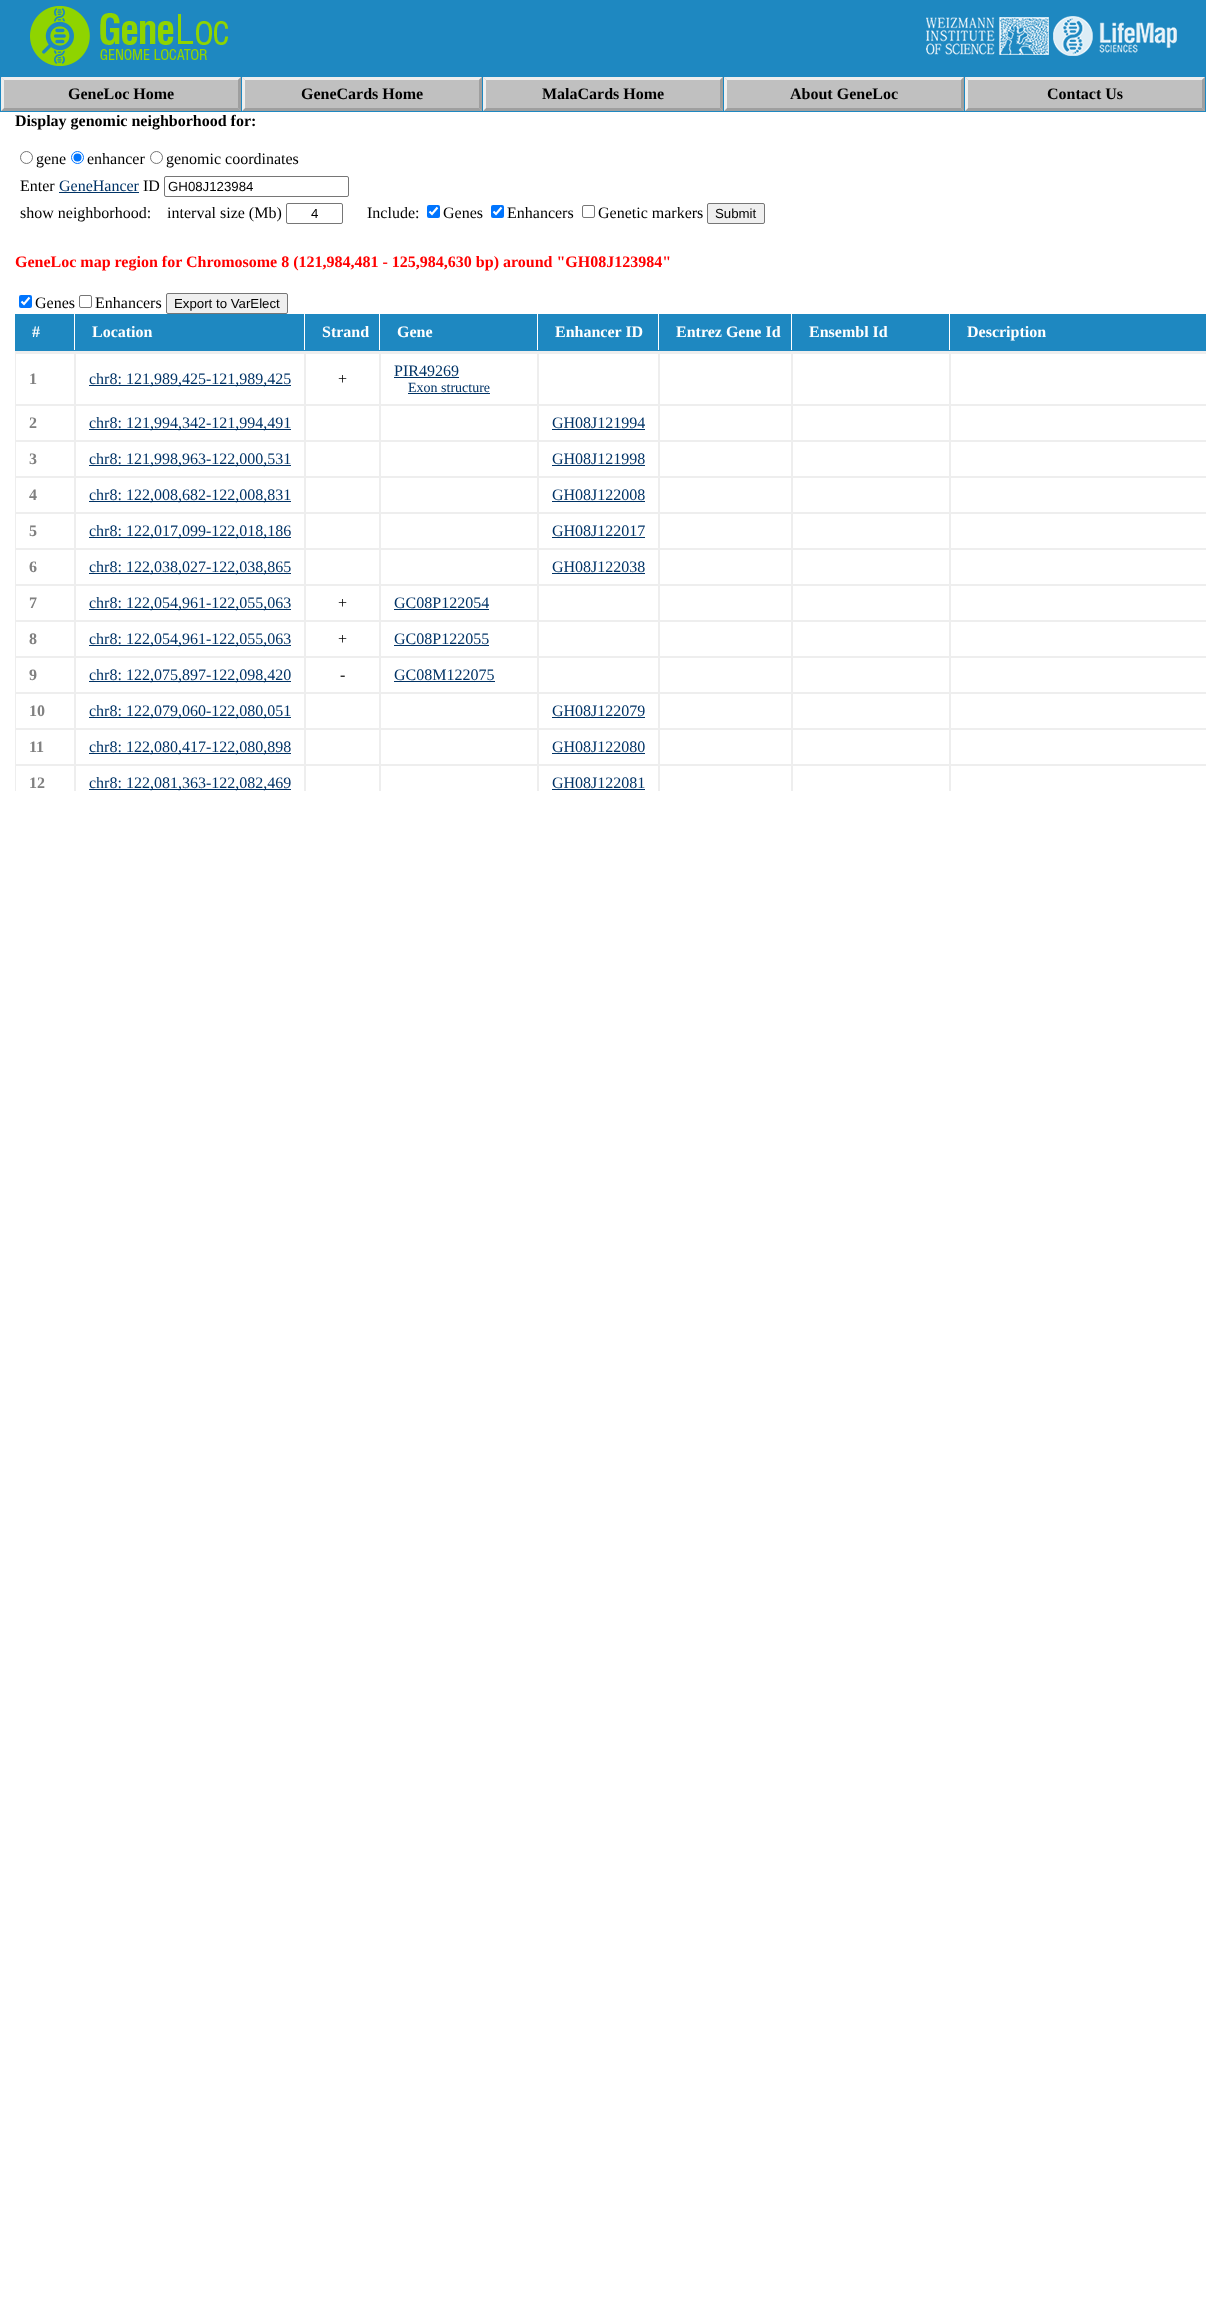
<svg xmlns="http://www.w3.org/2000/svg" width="1206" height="2302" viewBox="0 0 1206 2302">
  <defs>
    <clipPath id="clip1"><rect x="15" y="351" width="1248" height="440"/></clipPath>
  </defs>
  <rect width="100%" height="100%" fill="#ffffff"/>
  <rect x="0" y="0" width="1206" height="112" fill="#1e88c1"/>
  <image x="30" y="6" width="198" height="60" href="img1.png"/>
  <image x="926" y="17" width="123" height="38" href="img2.png"/>
  <image x="1053" y="16" width="124" height="40" href="img3.png"/>
  <rect x="1" y="77" width="240" height="34" fill="#c0c0c0"/>
  <path d="M1 77H241L238 80H4Z" fill="#eeeeee"/>
  <path d="M241 77V111L238 108V80Z" fill="#9f9f9f"/>
  <path d="M241 111H1L4 108H238Z" fill="#9f9f9f"/>
  <path d="M1 111V77L4 80V108Z" fill="#eeeeee"/>
  <text x="68" y="99" font-family="Liberation Serif" font-size="16" font-weight="bold" fill="#000000">GeneLoc Home</text>
  <rect x="242" y="77" width="240" height="34" fill="#c0c0c0"/>
  <path d="M242 77H482L479 80H245Z" fill="#eeeeee"/>
  <path d="M482 77V111L479 108V80Z" fill="#9f9f9f"/>
  <path d="M482 111H242L245 108H479Z" fill="#9f9f9f"/>
  <path d="M242 111V77L245 80V108Z" fill="#eeeeee"/>
  <text x="301" y="99" font-family="Liberation Serif" font-size="16" font-weight="bold" fill="#000000">GeneCards Home</text>
  <rect x="483" y="77" width="240" height="34" fill="#c0c0c0"/>
  <path d="M483 77H723L720 80H486Z" fill="#eeeeee"/>
  <path d="M723 77V111L720 108V80Z" fill="#9f9f9f"/>
  <path d="M723 111H483L486 108H720Z" fill="#9f9f9f"/>
  <path d="M483 111V77L486 80V108Z" fill="#eeeeee"/>
  <text x="542" y="99" font-family="Liberation Serif" font-size="16" font-weight="bold" fill="#000000">MalaCards Home</text>
  <rect x="724" y="77" width="240" height="34" fill="#c0c0c0"/>
  <path d="M724 77H964L961 80H727Z" fill="#eeeeee"/>
  <path d="M964 77V111L961 108V80Z" fill="#9f9f9f"/>
  <path d="M964 111H724L727 108H961Z" fill="#9f9f9f"/>
  <path d="M724 111V77L727 80V108Z" fill="#eeeeee"/>
  <text x="790" y="99" font-family="Liberation Serif" font-size="16" font-weight="bold" fill="#000000">About GeneLoc</text>
  <rect x="965" y="77" width="240" height="34" fill="#c0c0c0"/>
  <path d="M965 77H1205L1202 80H968Z" fill="#eeeeee"/>
  <path d="M1205 77V111L1202 108V80Z" fill="#9f9f9f"/>
  <path d="M1205 111H965L968 108H1202Z" fill="#9f9f9f"/>
  <path d="M965 111V77L968 80V108Z" fill="#eeeeee"/>
  <text x="1047" y="99" font-family="Liberation Serif" font-size="16" font-weight="bold" fill="#000000">Contact Us</text>
  <text x="15" y="126" font-family="Liberation Serif" font-size="16" font-weight="bold" fill="#000000">Display genomic neighborhood for:</text>
  <circle cx="26.5" cy="157.5" r="6" fill="none" stroke="#767676"/>
  <text x="36" y="164" font-family="Liberation Serif" font-size="16" fill="#000000">gene</text>
  <circle cx="77.5" cy="157.5" r="6" fill="none" stroke="#0075ff"/>
  <circle cx="77.5" cy="157.5" r="4" fill="#0075ff"/>
  <text x="87" y="164" font-family="Liberation Serif" font-size="16" fill="#000000">enhancer</text>
  <circle cx="156.5" cy="157.5" r="6" fill="none" stroke="#767676"/>
  <text x="166" y="164" font-family="Liberation Serif" font-size="16" fill="#000000">genomic coordinates</text>
  <text x="20" y="191" font-family="Liberation Serif" font-size="16" fill="#000000">Enter</text>
  <text x="59" y="191" font-family="Liberation Serif" font-size="16" fill="#003366">GeneHancer</text>
  <rect x="59" y="192" width="80" height="1" fill="#003366"/>
  <text x="143" y="191" font-family="Liberation Serif" font-size="16" fill="#000000">ID</text>
  <rect x="164.5" y="176.5" width="184" height="20" rx="1.5" fill="none" stroke="#767676"/>
  <text x="168" y="191" font-family="Liberation Sans" font-size="13.25" fill="#000000">GH08J123984</text>
  <text x="20" y="218" font-family="Liberation Serif" font-size="16" fill="#000000" xml:space="preserve">show neighborhood:    interval size (Mb)</text>
  <rect x="286.5" y="203.5" width="56" height="20" rx="1.5" fill="none" stroke="#767676"/>
  <text x="311" y="218" font-family="Liberation Sans" font-size="13.25" fill="#000000">4</text>
  <text x="367" y="218" font-family="Liberation Serif" font-size="16" fill="#000000">Include:</text>
  <rect x="427" y="205" width="13" height="13" rx="2" fill="#0075ff"/>
  <path d="M429.5 211.5L432 214L437.5 207.5" fill="none" stroke="#ffffff" stroke-width="2.1"/>
  <text x="443" y="218" font-family="Liberation Serif" font-size="16" fill="#000000">Genes</text>
  <rect x="491" y="205" width="13" height="13" rx="2" fill="#0075ff"/>
  <path d="M493.5 211.5L496 214L501.5 207.5" fill="none" stroke="#ffffff" stroke-width="2.1"/>
  <text x="507" y="218" font-family="Liberation Serif" font-size="16" fill="#000000">Enhancers</text>
  <rect x="582.5" y="205.5" width="12" height="12" rx="1.5" fill="none" stroke="#767676"/>
  <text x="598" y="218" font-family="Liberation Serif" font-size="16" fill="#000000">Genetic markers</text>
  <rect x="707.5" y="203.5" width="57" height="20" rx="1.5" fill="#efefef" stroke="#767676"/>
  <text x="715" y="218" font-family="Liberation Sans" font-size="13.25" fill="#000000">Submit</text>
  <text x="15" y="267" font-family="Liberation Serif" font-size="16" font-weight="bold" fill="#ff0000">GeneLoc map region for Chromosome 8 (121,984,481 - 125,984,630 bp) around "GH08J123984"</text>
  <rect x="19" y="295" width="13" height="13" rx="2" fill="#0075ff"/>
  <path d="M21.5 301.5L24 304L29.5 297.5" fill="none" stroke="#ffffff" stroke-width="2.1"/>
  <text x="35" y="308" font-family="Liberation Serif" font-size="16" fill="#000000">Genes</text>
  <rect x="79.5" y="295.5" width="12" height="12" rx="1.5" fill="none" stroke="#767676"/>
  <text x="95" y="308" font-family="Liberation Serif" font-size="16" fill="#000000">Enhancers</text>
  <rect x="166.5" y="293.5" width="121" height="20" rx="1.5" fill="#efefef" stroke="#767676"/>
  <text x="174" y="308" font-family="Liberation Sans" font-size="13.25" fill="#000000">Export to VarElect</text>
  <rect x="15" y="314" width="1191" height="37" fill="#1e88c1"/>
  <rect x="15" y="351" width="1191" height="2" fill="#eeeeee"/>
  <text x="32" y="337" font-family="Liberation Serif" font-size="16" font-weight="bold" fill="#ffffff">#</text>
  <rect x="74" y="314" width="1" height="36" fill="#ffffff"/>
  <text x="92" y="337" font-family="Liberation Serif" font-size="16" font-weight="bold" fill="#ffffff">Location</text>
  <rect x="304" y="314" width="1" height="36" fill="#ffffff"/>
  <text x="322" y="337" font-family="Liberation Serif" font-size="16" font-weight="bold" fill="#ffffff">Strand</text>
  <rect x="379" y="314" width="1" height="36" fill="#ffffff"/>
  <text x="397" y="337" font-family="Liberation Serif" font-size="16" font-weight="bold" fill="#ffffff">Gene</text>
  <rect x="537" y="314" width="1" height="36" fill="#ffffff"/>
  <text x="555" y="337" font-family="Liberation Serif" font-size="16" font-weight="bold" fill="#ffffff">Enhancer ID</text>
  <rect x="658" y="314" width="1" height="36" fill="#ffffff"/>
  <text x="676" y="337" font-family="Liberation Serif" font-size="16" font-weight="bold" fill="#ffffff">Entrez Gene Id</text>
  <rect x="791" y="314" width="1" height="36" fill="#ffffff"/>
  <text x="809" y="337" font-family="Liberation Serif" font-size="16" font-weight="bold" fill="#ffffff">Ensembl Id</text>
  <rect x="949" y="314" width="1" height="36" fill="#ffffff"/>
  <text x="967" y="337" font-family="Liberation Serif" font-size="16" font-weight="bold" fill="#ffffff">Description</text>
  <rect x="15.5" y="353.5" width="59" height="51" fill="none" stroke="#eeeeee"/>
  <text x="29" y="384" font-family="Liberation Serif" font-size="16" font-weight="bold" fill="#808080">1</text>
  <rect x="75.5" y="353.5" width="229" height="51" fill="none" stroke="#eeeeee"/>
  <rect x="89" y="385" width="202" height="1" fill="#003366"/>
  <text x="89" y="384" font-family="Liberation Serif" font-size="16" fill="#003366">chr8: 121,989,425-121,989,425</text>
  <rect x="305.5" y="353.5" width="74" height="51" fill="none" stroke="#eeeeee"/>
  <text x="338" y="384" font-family="Liberation Serif" font-size="16" fill="#000000">+</text>
  <rect x="380.5" y="353.5" width="157" height="51" fill="none" stroke="#eeeeee"/>
  <text x="394" y="376" font-family="Liberation Serif" font-size="16" fill="#003366">PIR49269</text>
  <rect x="394" y="377" width="65" height="1" fill="#003366"/>
  <text x="408" y="392" font-family="Liberation Serif" font-size="14" fill="#003366">Exon structure</text>
  <rect x="408" y="393" width="82" height="1" fill="#003366"/>
  <rect x="538.5" y="353.5" width="120" height="51" fill="none" stroke="#eeeeee"/>
  <rect x="659.5" y="353.5" width="132" height="51" fill="none" stroke="#eeeeee"/>
  <rect x="792.5" y="353.5" width="157" height="51" fill="none" stroke="#eeeeee"/>
  <rect x="950.5" y="353.5" width="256" height="51" fill="none" stroke="#eeeeee"/>
  <rect x="15.5" y="405.5" width="59" height="35" fill="none" stroke="#eeeeee"/>
  <text x="29" y="428" font-family="Liberation Serif" font-size="16" font-weight="bold" fill="#808080">2</text>
  <rect x="75.5" y="405.5" width="229" height="35" fill="none" stroke="#eeeeee"/>
  <rect x="89" y="429" width="202" height="1" fill="#003366"/>
  <text x="89" y="428" font-family="Liberation Serif" font-size="16" fill="#003366">chr8: 121,994,342-121,994,491</text>
  <rect x="305.5" y="405.5" width="74" height="35" fill="none" stroke="#eeeeee"/>
  <rect x="380.5" y="405.5" width="157" height="35" fill="none" stroke="#eeeeee"/>
  <rect x="538.5" y="405.5" width="120" height="35" fill="none" stroke="#eeeeee"/>
  <text x="552" y="428" font-family="Liberation Serif" font-size="16" fill="#003366">GH08J121994</text>
  <rect x="552" y="429" width="93" height="1" fill="#003366"/>
  <rect x="659.5" y="405.5" width="132" height="35" fill="none" stroke="#eeeeee"/>
  <rect x="792.5" y="405.5" width="157" height="35" fill="none" stroke="#eeeeee"/>
  <rect x="950.5" y="405.5" width="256" height="35" fill="none" stroke="#eeeeee"/>
  <rect x="15.5" y="441.5" width="59" height="35" fill="none" stroke="#eeeeee"/>
  <text x="29" y="464" font-family="Liberation Serif" font-size="16" font-weight="bold" fill="#808080">3</text>
  <rect x="75.5" y="441.5" width="229" height="35" fill="none" stroke="#eeeeee"/>
  <rect x="89" y="465" width="202" height="1" fill="#003366"/>
  <text x="89" y="464" font-family="Liberation Serif" font-size="16" fill="#003366">chr8: 121,998,963-122,000,531</text>
  <rect x="305.5" y="441.5" width="74" height="35" fill="none" stroke="#eeeeee"/>
  <rect x="380.5" y="441.5" width="157" height="35" fill="none" stroke="#eeeeee"/>
  <rect x="538.5" y="441.5" width="120" height="35" fill="none" stroke="#eeeeee"/>
  <text x="552" y="464" font-family="Liberation Serif" font-size="16" fill="#003366">GH08J121998</text>
  <rect x="552" y="465" width="93" height="1" fill="#003366"/>
  <rect x="659.5" y="441.5" width="132" height="35" fill="none" stroke="#eeeeee"/>
  <rect x="792.5" y="441.5" width="157" height="35" fill="none" stroke="#eeeeee"/>
  <rect x="950.5" y="441.5" width="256" height="35" fill="none" stroke="#eeeeee"/>
  <rect x="15.5" y="477.5" width="59" height="35" fill="none" stroke="#eeeeee"/>
  <text x="29" y="500" font-family="Liberation Serif" font-size="16" font-weight="bold" fill="#808080">4</text>
  <rect x="75.5" y="477.5" width="229" height="35" fill="none" stroke="#eeeeee"/>
  <rect x="89" y="501" width="202" height="1" fill="#003366"/>
  <text x="89" y="500" font-family="Liberation Serif" font-size="16" fill="#003366">chr8: 122,008,682-122,008,831</text>
  <rect x="305.5" y="477.5" width="74" height="35" fill="none" stroke="#eeeeee"/>
  <rect x="380.5" y="477.5" width="157" height="35" fill="none" stroke="#eeeeee"/>
  <rect x="538.5" y="477.5" width="120" height="35" fill="none" stroke="#eeeeee"/>
  <text x="552" y="500" font-family="Liberation Serif" font-size="16" fill="#003366">GH08J122008</text>
  <rect x="552" y="501" width="93" height="1" fill="#003366"/>
  <rect x="659.5" y="477.5" width="132" height="35" fill="none" stroke="#eeeeee"/>
  <rect x="792.5" y="477.5" width="157" height="35" fill="none" stroke="#eeeeee"/>
  <rect x="950.5" y="477.5" width="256" height="35" fill="none" stroke="#eeeeee"/>
  <rect x="15.5" y="513.5" width="59" height="35" fill="none" stroke="#eeeeee"/>
  <text x="29" y="536" font-family="Liberation Serif" font-size="16" font-weight="bold" fill="#808080">5</text>
  <rect x="75.5" y="513.5" width="229" height="35" fill="none" stroke="#eeeeee"/>
  <rect x="89" y="537" width="202" height="1" fill="#003366"/>
  <text x="89" y="536" font-family="Liberation Serif" font-size="16" fill="#003366">chr8: 122,017,099-122,018,186</text>
  <rect x="305.5" y="513.5" width="74" height="35" fill="none" stroke="#eeeeee"/>
  <rect x="380.5" y="513.5" width="157" height="35" fill="none" stroke="#eeeeee"/>
  <rect x="538.5" y="513.5" width="120" height="35" fill="none" stroke="#eeeeee"/>
  <text x="552" y="536" font-family="Liberation Serif" font-size="16" fill="#003366">GH08J122017</text>
  <rect x="552" y="537" width="93" height="1" fill="#003366"/>
  <rect x="659.5" y="513.5" width="132" height="35" fill="none" stroke="#eeeeee"/>
  <rect x="792.5" y="513.5" width="157" height="35" fill="none" stroke="#eeeeee"/>
  <rect x="950.5" y="513.5" width="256" height="35" fill="none" stroke="#eeeeee"/>
  <rect x="15.5" y="549.5" width="59" height="35" fill="none" stroke="#eeeeee"/>
  <text x="29" y="572" font-family="Liberation Serif" font-size="16" font-weight="bold" fill="#808080">6</text>
  <rect x="75.5" y="549.5" width="229" height="35" fill="none" stroke="#eeeeee"/>
  <rect x="89" y="573" width="202" height="1" fill="#003366"/>
  <text x="89" y="572" font-family="Liberation Serif" font-size="16" fill="#003366">chr8: 122,038,027-122,038,865</text>
  <rect x="305.5" y="549.5" width="74" height="35" fill="none" stroke="#eeeeee"/>
  <rect x="380.5" y="549.5" width="157" height="35" fill="none" stroke="#eeeeee"/>
  <rect x="538.5" y="549.5" width="120" height="35" fill="none" stroke="#eeeeee"/>
  <text x="552" y="572" font-family="Liberation Serif" font-size="16" fill="#003366">GH08J122038</text>
  <rect x="552" y="573" width="93" height="1" fill="#003366"/>
  <rect x="659.5" y="549.5" width="132" height="35" fill="none" stroke="#eeeeee"/>
  <rect x="792.5" y="549.5" width="157" height="35" fill="none" stroke="#eeeeee"/>
  <rect x="950.5" y="549.5" width="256" height="35" fill="none" stroke="#eeeeee"/>
  <rect x="15.5" y="585.5" width="59" height="35" fill="none" stroke="#eeeeee"/>
  <text x="29" y="608" font-family="Liberation Serif" font-size="16" font-weight="bold" fill="#808080">7</text>
  <rect x="75.5" y="585.5" width="229" height="35" fill="none" stroke="#eeeeee"/>
  <rect x="89" y="609" width="202" height="1" fill="#003366"/>
  <text x="89" y="608" font-family="Liberation Serif" font-size="16" fill="#003366">chr8: 122,054,961-122,055,063</text>
  <rect x="305.5" y="585.5" width="74" height="35" fill="none" stroke="#eeeeee"/>
  <text x="338" y="608" font-family="Liberation Serif" font-size="16" fill="#000000">+</text>
  <rect x="380.5" y="585.5" width="157" height="35" fill="none" stroke="#eeeeee"/>
  <text x="394" y="608" font-family="Liberation Serif" font-size="16" fill="#003366">GC08P122054</text>
  <rect x="394" y="609" width="95" height="1" fill="#003366"/>
  <rect x="538.5" y="585.5" width="120" height="35" fill="none" stroke="#eeeeee"/>
  <rect x="659.5" y="585.5" width="132" height="35" fill="none" stroke="#eeeeee"/>
  <rect x="792.5" y="585.5" width="157" height="35" fill="none" stroke="#eeeeee"/>
  <rect x="950.5" y="585.5" width="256" height="35" fill="none" stroke="#eeeeee"/>
  <rect x="15.5" y="621.5" width="59" height="35" fill="none" stroke="#eeeeee"/>
  <text x="29" y="644" font-family="Liberation Serif" font-size="16" font-weight="bold" fill="#808080">8</text>
  <rect x="75.5" y="621.5" width="229" height="35" fill="none" stroke="#eeeeee"/>
  <rect x="89" y="645" width="202" height="1" fill="#003366"/>
  <text x="89" y="644" font-family="Liberation Serif" font-size="16" fill="#003366">chr8: 122,054,961-122,055,063</text>
  <rect x="305.5" y="621.5" width="74" height="35" fill="none" stroke="#eeeeee"/>
  <text x="338" y="644" font-family="Liberation Serif" font-size="16" fill="#000000">+</text>
  <rect x="380.5" y="621.5" width="157" height="35" fill="none" stroke="#eeeeee"/>
  <text x="394" y="644" font-family="Liberation Serif" font-size="16" fill="#003366">GC08P122055</text>
  <rect x="394" y="645" width="95" height="1" fill="#003366"/>
  <rect x="538.5" y="621.5" width="120" height="35" fill="none" stroke="#eeeeee"/>
  <rect x="659.5" y="621.5" width="132" height="35" fill="none" stroke="#eeeeee"/>
  <rect x="792.5" y="621.5" width="157" height="35" fill="none" stroke="#eeeeee"/>
  <rect x="950.5" y="621.5" width="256" height="35" fill="none" stroke="#eeeeee"/>
  <rect x="15.5" y="657.5" width="59" height="35" fill="none" stroke="#eeeeee"/>
  <text x="29" y="680" font-family="Liberation Serif" font-size="16" font-weight="bold" fill="#808080">9</text>
  <rect x="75.5" y="657.5" width="229" height="35" fill="none" stroke="#eeeeee"/>
  <rect x="89" y="681" width="202" height="1" fill="#003366"/>
  <text x="89" y="680" font-family="Liberation Serif" font-size="16" fill="#003366">chr8: 122,075,897-122,098,420</text>
  <rect x="305.5" y="657.5" width="74" height="35" fill="none" stroke="#eeeeee"/>
  <text x="340" y="680" font-family="Liberation Serif" font-size="16" fill="#000000">-</text>
  <rect x="380.5" y="657.5" width="157" height="35" fill="none" stroke="#eeeeee"/>
  <text x="394" y="680" font-family="Liberation Serif" font-size="16" fill="#003366">GC08M122075</text>
  <rect x="394" y="681" width="101" height="1" fill="#003366"/>
  <rect x="538.5" y="657.5" width="120" height="35" fill="none" stroke="#eeeeee"/>
  <rect x="659.5" y="657.5" width="132" height="35" fill="none" stroke="#eeeeee"/>
  <rect x="792.5" y="657.5" width="157" height="35" fill="none" stroke="#eeeeee"/>
  <rect x="950.5" y="657.5" width="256" height="35" fill="none" stroke="#eeeeee"/>
  <rect x="15.5" y="693.5" width="59" height="35" fill="none" stroke="#eeeeee"/>
  <text x="29" y="716" font-family="Liberation Serif" font-size="16" font-weight="bold" fill="#808080">10</text>
  <rect x="75.5" y="693.5" width="229" height="35" fill="none" stroke="#eeeeee"/>
  <rect x="89" y="717" width="202" height="1" fill="#003366"/>
  <text x="89" y="716" font-family="Liberation Serif" font-size="16" fill="#003366">chr8: 122,079,060-122,080,051</text>
  <rect x="305.5" y="693.5" width="74" height="35" fill="none" stroke="#eeeeee"/>
  <rect x="380.5" y="693.5" width="157" height="35" fill="none" stroke="#eeeeee"/>
  <rect x="538.5" y="693.5" width="120" height="35" fill="none" stroke="#eeeeee"/>
  <text x="552" y="716" font-family="Liberation Serif" font-size="16" fill="#003366">GH08J122079</text>
  <rect x="552" y="717" width="93" height="1" fill="#003366"/>
  <rect x="659.5" y="693.5" width="132" height="35" fill="none" stroke="#eeeeee"/>
  <rect x="792.5" y="693.5" width="157" height="35" fill="none" stroke="#eeeeee"/>
  <rect x="950.5" y="693.5" width="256" height="35" fill="none" stroke="#eeeeee"/>
  <rect x="15.5" y="729.5" width="59" height="35" fill="none" stroke="#eeeeee"/>
  <text x="29" y="752" font-family="Liberation Serif" font-size="16" font-weight="bold" fill="#808080">11</text>
  <rect x="75.5" y="729.5" width="229" height="35" fill="none" stroke="#eeeeee"/>
  <rect x="89" y="753" width="202" height="1" fill="#003366"/>
  <text x="89" y="752" font-family="Liberation Serif" font-size="16" fill="#003366">chr8: 122,080,417-122,080,898</text>
  <rect x="305.5" y="729.5" width="74" height="35" fill="none" stroke="#eeeeee"/>
  <rect x="380.5" y="729.5" width="157" height="35" fill="none" stroke="#eeeeee"/>
  <rect x="538.5" y="729.5" width="120" height="35" fill="none" stroke="#eeeeee"/>
  <text x="552" y="752" font-family="Liberation Serif" font-size="16" fill="#003366">GH08J122080</text>
  <rect x="552" y="753" width="93" height="1" fill="#003366"/>
  <rect x="659.5" y="729.5" width="132" height="35" fill="none" stroke="#eeeeee"/>
  <rect x="792.5" y="729.5" width="157" height="35" fill="none" stroke="#eeeeee"/>
  <rect x="950.5" y="729.5" width="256" height="35" fill="none" stroke="#eeeeee"/>
  <g clip-path="url(#clip1)">
    <rect x="15.5" y="765.5" width="59" height="35" fill="none" stroke="#eeeeee"/>
  </g>
  <text x="29" y="788" font-family="Liberation Serif" font-size="16" font-weight="bold" fill="#808080">12</text>
  <g clip-path="url(#clip1)">
    <rect x="75.5" y="765.5" width="229" height="35" fill="none" stroke="#eeeeee"/>
  </g>
  <rect x="89" y="789" width="202" height="1" fill="#003366"/>
  <text x="89" y="788" font-family="Liberation Serif" font-size="16" fill="#003366">chr8: 122,081,363-122,082,469</text>
  <g clip-path="url(#clip1)">
    <rect x="305.5" y="765.5" width="74" height="35" fill="none" stroke="#eeeeee"/>
    <rect x="380.5" y="765.5" width="157" height="35" fill="none" stroke="#eeeeee"/>
    <rect x="538.5" y="765.5" width="120" height="35" fill="none" stroke="#eeeeee"/>
  </g>
  <text x="552" y="788" font-family="Liberation Serif" font-size="16" fill="#003366">GH08J122081</text>
  <rect x="552" y="789" width="93" height="1" fill="#003366"/>
  <g clip-path="url(#clip1)">
    <rect x="659.5" y="765.5" width="132" height="35" fill="none" stroke="#eeeeee"/>
    <rect x="792.5" y="765.5" width="157" height="35" fill="none" stroke="#eeeeee"/>
    <rect x="950.5" y="765.5" width="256" height="35" fill="none" stroke="#eeeeee"/>
  </g>
</svg>
